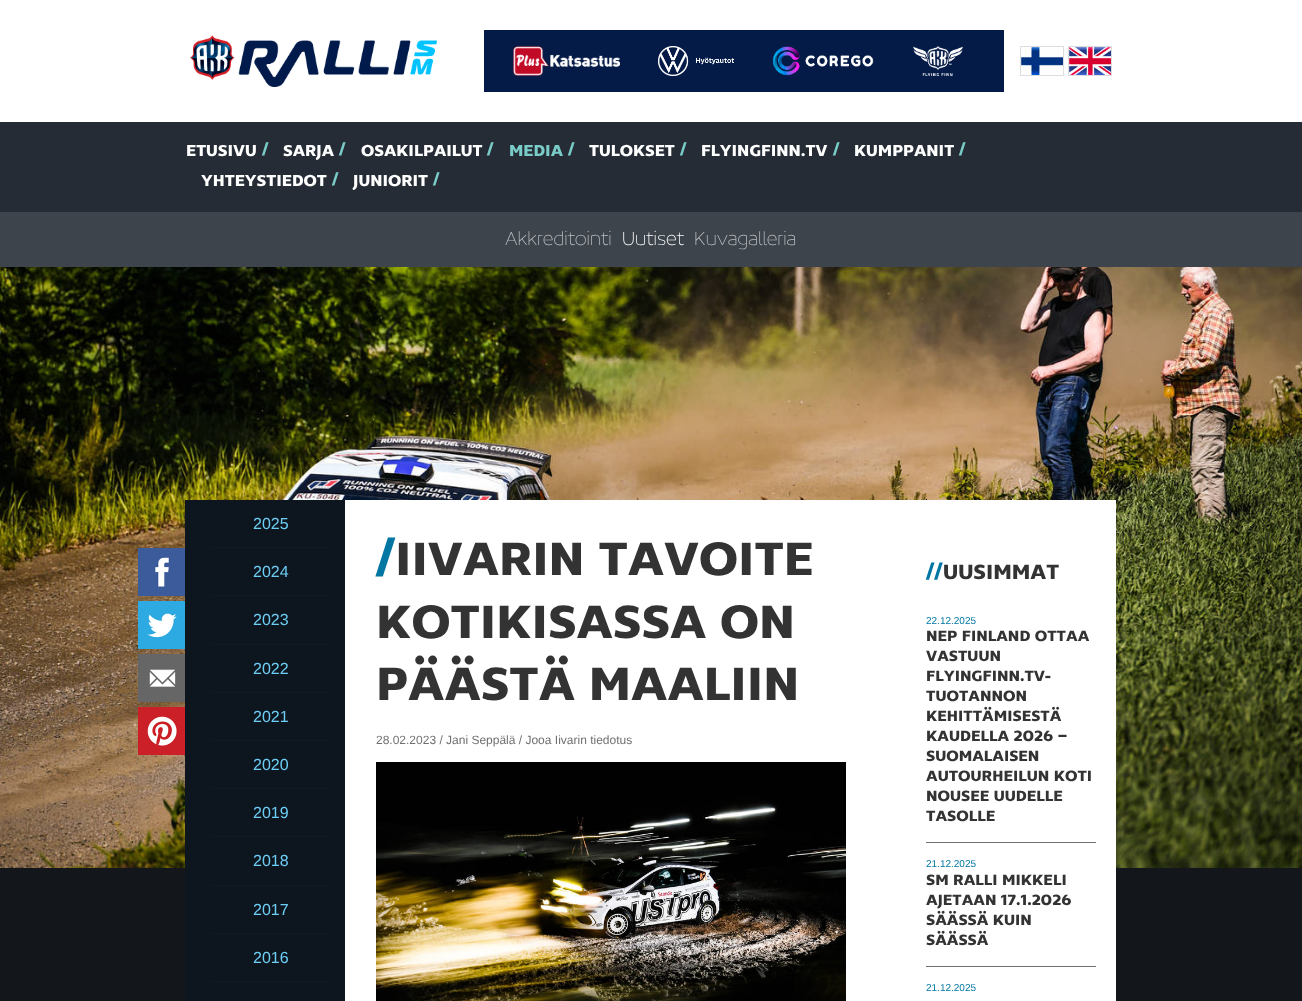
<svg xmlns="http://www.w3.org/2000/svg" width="1302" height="1001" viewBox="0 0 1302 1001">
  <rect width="100%" height="100%" fill="#13161a"/>
  <image x="0" y="267" width="1302" height="601" href="img1.png"/>
  <rect x="0" y="0" width="1302" height="122" fill="#ffffff"/>
  <image x="190" y="35" width="247" height="52" href="img2.png"/>
  <rect x="484" y="30" width="520" height="62" fill="#051b47"/>
  <image x="513" y="46" width="107" height="30" href="img3.png"/>
  <image x="658" y="46" width="76" height="30" href="img4.png"/>
  <image x="772" y="46" width="102" height="30" href="img5.png"/>
  <image x="913" y="46" width="50" height="30" href="img6.png"/>
  <rect x="1020.5" y="46.5" width="43" height="29" fill="none" stroke="#dddddd"/>
  <rect x="1068.5" y="46.5" width="43" height="29" fill="none" stroke="#dddddd"/>
  <image x="1021" y="47" width="42" height="28" href="img7.png"/>
  <image x="1069" y="47" width="42" height="28" href="img8.png"/>
  <rect x="0" y="122" width="1302" height="90" fill="#252c35"/>
  <text x="186" y="156" font-family="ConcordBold" font-size="17" font-weight="bold" fill="#ffffff">ETUSIVU</text>
  <text x="262" y="155" font-family="ConcordBold" font-size="17" font-weight="bold" fill="#7accc8">/</text>
  <text x="283" y="156" font-family="ConcordBold" font-size="17" font-weight="bold" fill="#ffffff">SARJA</text>
  <text x="339" y="155" font-family="ConcordBold" font-size="17" font-weight="bold" fill="#7accc8">/</text>
  <text x="361" y="156" font-family="ConcordBold" font-size="17" font-weight="bold" fill="#ffffff">OSAKILPAILUT</text>
  <text x="487" y="155" font-family="ConcordBold" font-size="17" font-weight="bold" fill="#7accc8">/</text>
  <text x="509" y="156" font-family="ConcordBold" font-size="17" font-weight="bold" fill="#7accc8">MEDIA</text>
  <text x="568" y="155" font-family="ConcordBold" font-size="17" font-weight="bold" fill="#7accc8">/</text>
  <text x="589" y="156" font-family="ConcordBold" font-size="17" font-weight="bold" fill="#ffffff">TULOKSET</text>
  <text x="680" y="155" font-family="ConcordBold" font-size="17" font-weight="bold" fill="#7accc8">/</text>
  <text x="701" y="156" font-family="ConcordBold" font-size="17" font-weight="bold" fill="#ffffff">FLYINGFINN.TV</text>
  <text x="833" y="155" font-family="ConcordBold" font-size="17" font-weight="bold" fill="#7accc8">/</text>
  <text x="854" y="156" font-family="ConcordBold" font-size="17" font-weight="bold" fill="#ffffff">KUMPPANIT</text>
  <text x="959" y="155" font-family="ConcordBold" font-size="17" font-weight="bold" fill="#7accc8">/</text>
  <text x="201" y="186" font-family="ConcordBold" font-size="17" font-weight="bold" fill="#ffffff">YHTEYSTIEDOT</text>
  <text x="332" y="185" font-family="ConcordBold" font-size="17" font-weight="bold" fill="#7accc8">/</text>
  <text x="353" y="186" font-family="ConcordBold" font-size="17" font-weight="bold" fill="#ffffff">JUNIORIT</text>
  <text x="433" y="185" font-family="ConcordBold" font-size="17" font-weight="bold" fill="#7accc8">/</text>
  <rect x="0" y="212" width="1302" height="55" fill="#3d444b"/>
  <text x="505" y="245" font-family="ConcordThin" font-size="21" font-weight="100" fill="#bdbfc2">Akkreditointi</text>
  <text x="622" y="245" font-family="ConcordThin" font-size="21" font-weight="100" fill="#ffffff">Uutiset</text>
  <text x="694" y="245" font-family="ConcordThin" font-size="21" font-weight="100" fill="#bdbfc2">Kuvagalleria</text>
  <rect x="345" y="500" width="771" height="501" fill="#ffffff"/>
  <image x="138" y="548" width="47" height="48" href="img9.png"/>
  <image x="138" y="601" width="47" height="48" href="img10.png"/>
  <image x="138" y="654" width="47" height="48" href="img11.png"/>
  <image x="138" y="707" width="47" height="48" href="img12.png"/>
  <rect x="185" y="500" width="160" height="501" fill="#0d151e"/>
  <rect x="211" y="547" width="120" height="1" fill="#101a25"/>
  <text x="253" y="529" font-family="Liberation Sans" font-size="16" fill="#6dcff6">2025</text>
  <rect x="211" y="595" width="120" height="1" fill="#101a25"/>
  <text x="253" y="577" font-family="Liberation Sans" font-size="16" fill="#6dcff6">2024</text>
  <rect x="211" y="644" width="120" height="1" fill="#101a25"/>
  <text x="253" y="625" font-family="Liberation Sans" font-size="16" fill="#6dcff6">2023</text>
  <rect x="211" y="692" width="120" height="1" fill="#101a25"/>
  <text x="253" y="674" font-family="Liberation Sans" font-size="16" fill="#6dcff6">2022</text>
  <rect x="211" y="740" width="120" height="1" fill="#101a25"/>
  <text x="253" y="722" font-family="Liberation Sans" font-size="16" fill="#6dcff6">2021</text>
  <rect x="211" y="788" width="120" height="1" fill="#101a25"/>
  <text x="253" y="770" font-family="Liberation Sans" font-size="16" fill="#6dcff6">2020</text>
  <rect x="211" y="836" width="120" height="1" fill="#101a25"/>
  <text x="253" y="818" font-family="Liberation Sans" font-size="16" fill="#6dcff6">2019</text>
  <rect x="211" y="885" width="120" height="1" fill="#101a25"/>
  <text x="253" y="866" font-family="Liberation Sans" font-size="16" fill="#6dcff6">2018</text>
  <rect x="211" y="933" width="120" height="1" fill="#101a25"/>
  <text x="253" y="915" font-family="Liberation Sans" font-size="16" fill="#6dcff6">2017</text>
  <rect x="211" y="981" width="120" height="1" fill="#101a25"/>
  <text x="253" y="963" font-family="Liberation Sans" font-size="16" fill="#6dcff6">2016</text>
  <text x="376" y="575" font-family="ConcordBold" font-size="50" font-weight="bold" fill="#0076a3">/</text>
  <text x="395" y="575" font-family="ConcordBold" font-size="50" font-weight="bold" fill="#333333">IIVARIN TAVOITE</text>
  <text x="376" y="638" font-family="ConcordBold" font-size="50" font-weight="bold" fill="#333333">KOTIKISASSA ON</text>
  <text x="376" y="700" font-family="ConcordBold" font-size="50" font-weight="bold" fill="#333333">PÄÄSTÄ MAALIIN</text>
  <text x="376" y="744" font-family="Liberation Sans" font-size="12" fill="#707070">28.02.2023 / Jani Seppälä / Jooa Iivarin tiedotus</text>
  <image x="376" y="762" width="470" height="239" href="img13.png"/>
  <text x="926" y="579" font-family="ConcordBold" font-size="22" font-weight="bold" fill="#0076a3">//</text>
  <text x="943" y="579" font-family="ConcordBold" font-size="22" font-weight="bold" fill="#333333">UUSIMMAT</text>
  <rect x="926" y="842" width="170" height="1" fill="#707070"/>
  <text x="926" y="624" font-family="Liberation Sans" font-size="10" fill="#0076a3">22.12.2025</text>
  <text x="926" y="641" font-family="ConcordBold" font-size="16" font-weight="bold" fill="#333333">NEP FINLAND OTTAA</text>
  <text x="926" y="661" font-family="ConcordBold" font-size="16" font-weight="bold" fill="#333333">VASTUUN</text>
  <text x="926" y="681" font-family="ConcordBold" font-size="16" font-weight="bold" fill="#333333">FLYINGFINN.TV-</text>
  <text x="926" y="701" font-family="ConcordBold" font-size="16" font-weight="bold" fill="#333333">TUOTANNON</text>
  <text x="926" y="721" font-family="ConcordBold" font-size="16" font-weight="bold" fill="#333333">KEHITTÄMISESTÄ</text>
  <text x="926" y="741" font-family="ConcordBold" font-size="16" font-weight="bold" fill="#333333">KAUDELLA 2026 –</text>
  <text x="926" y="761" font-family="ConcordBold" font-size="16" font-weight="bold" fill="#333333">SUOMALAISEN</text>
  <text x="926" y="781" font-family="ConcordBold" font-size="16" font-weight="bold" fill="#333333">AUTOURHEILUN KOTI</text>
  <text x="926" y="801" font-family="ConcordBold" font-size="16" font-weight="bold" fill="#333333">NOUSEE UUDELLE</text>
  <text x="926" y="821" font-family="ConcordBold" font-size="16" font-weight="bold" fill="#333333">TASOLLE</text>
  <rect x="926" y="966" width="170" height="1" fill="#707070"/>
  <text x="926" y="867" font-family="Liberation Sans" font-size="10" fill="#0076a3">21.12.2025</text>
  <text x="926" y="885" font-family="ConcordBold" font-size="16" font-weight="bold" fill="#333333">SM RALLI MIKKELI</text>
  <text x="926" y="905" font-family="ConcordBold" font-size="16" font-weight="bold" fill="#333333">AJETAAN 17.1.2026</text>
  <text x="926" y="925" font-family="ConcordBold" font-size="16" font-weight="bold" fill="#333333">SÄÄSSÄ KUIN</text>
  <text x="926" y="945" font-family="ConcordBold" font-size="16" font-weight="bold" fill="#333333">SÄÄSSÄ</text>
  <text x="926" y="991" font-family="Liberation Sans" font-size="10" fill="#0076a3">21.12.2025</text>
</svg>
